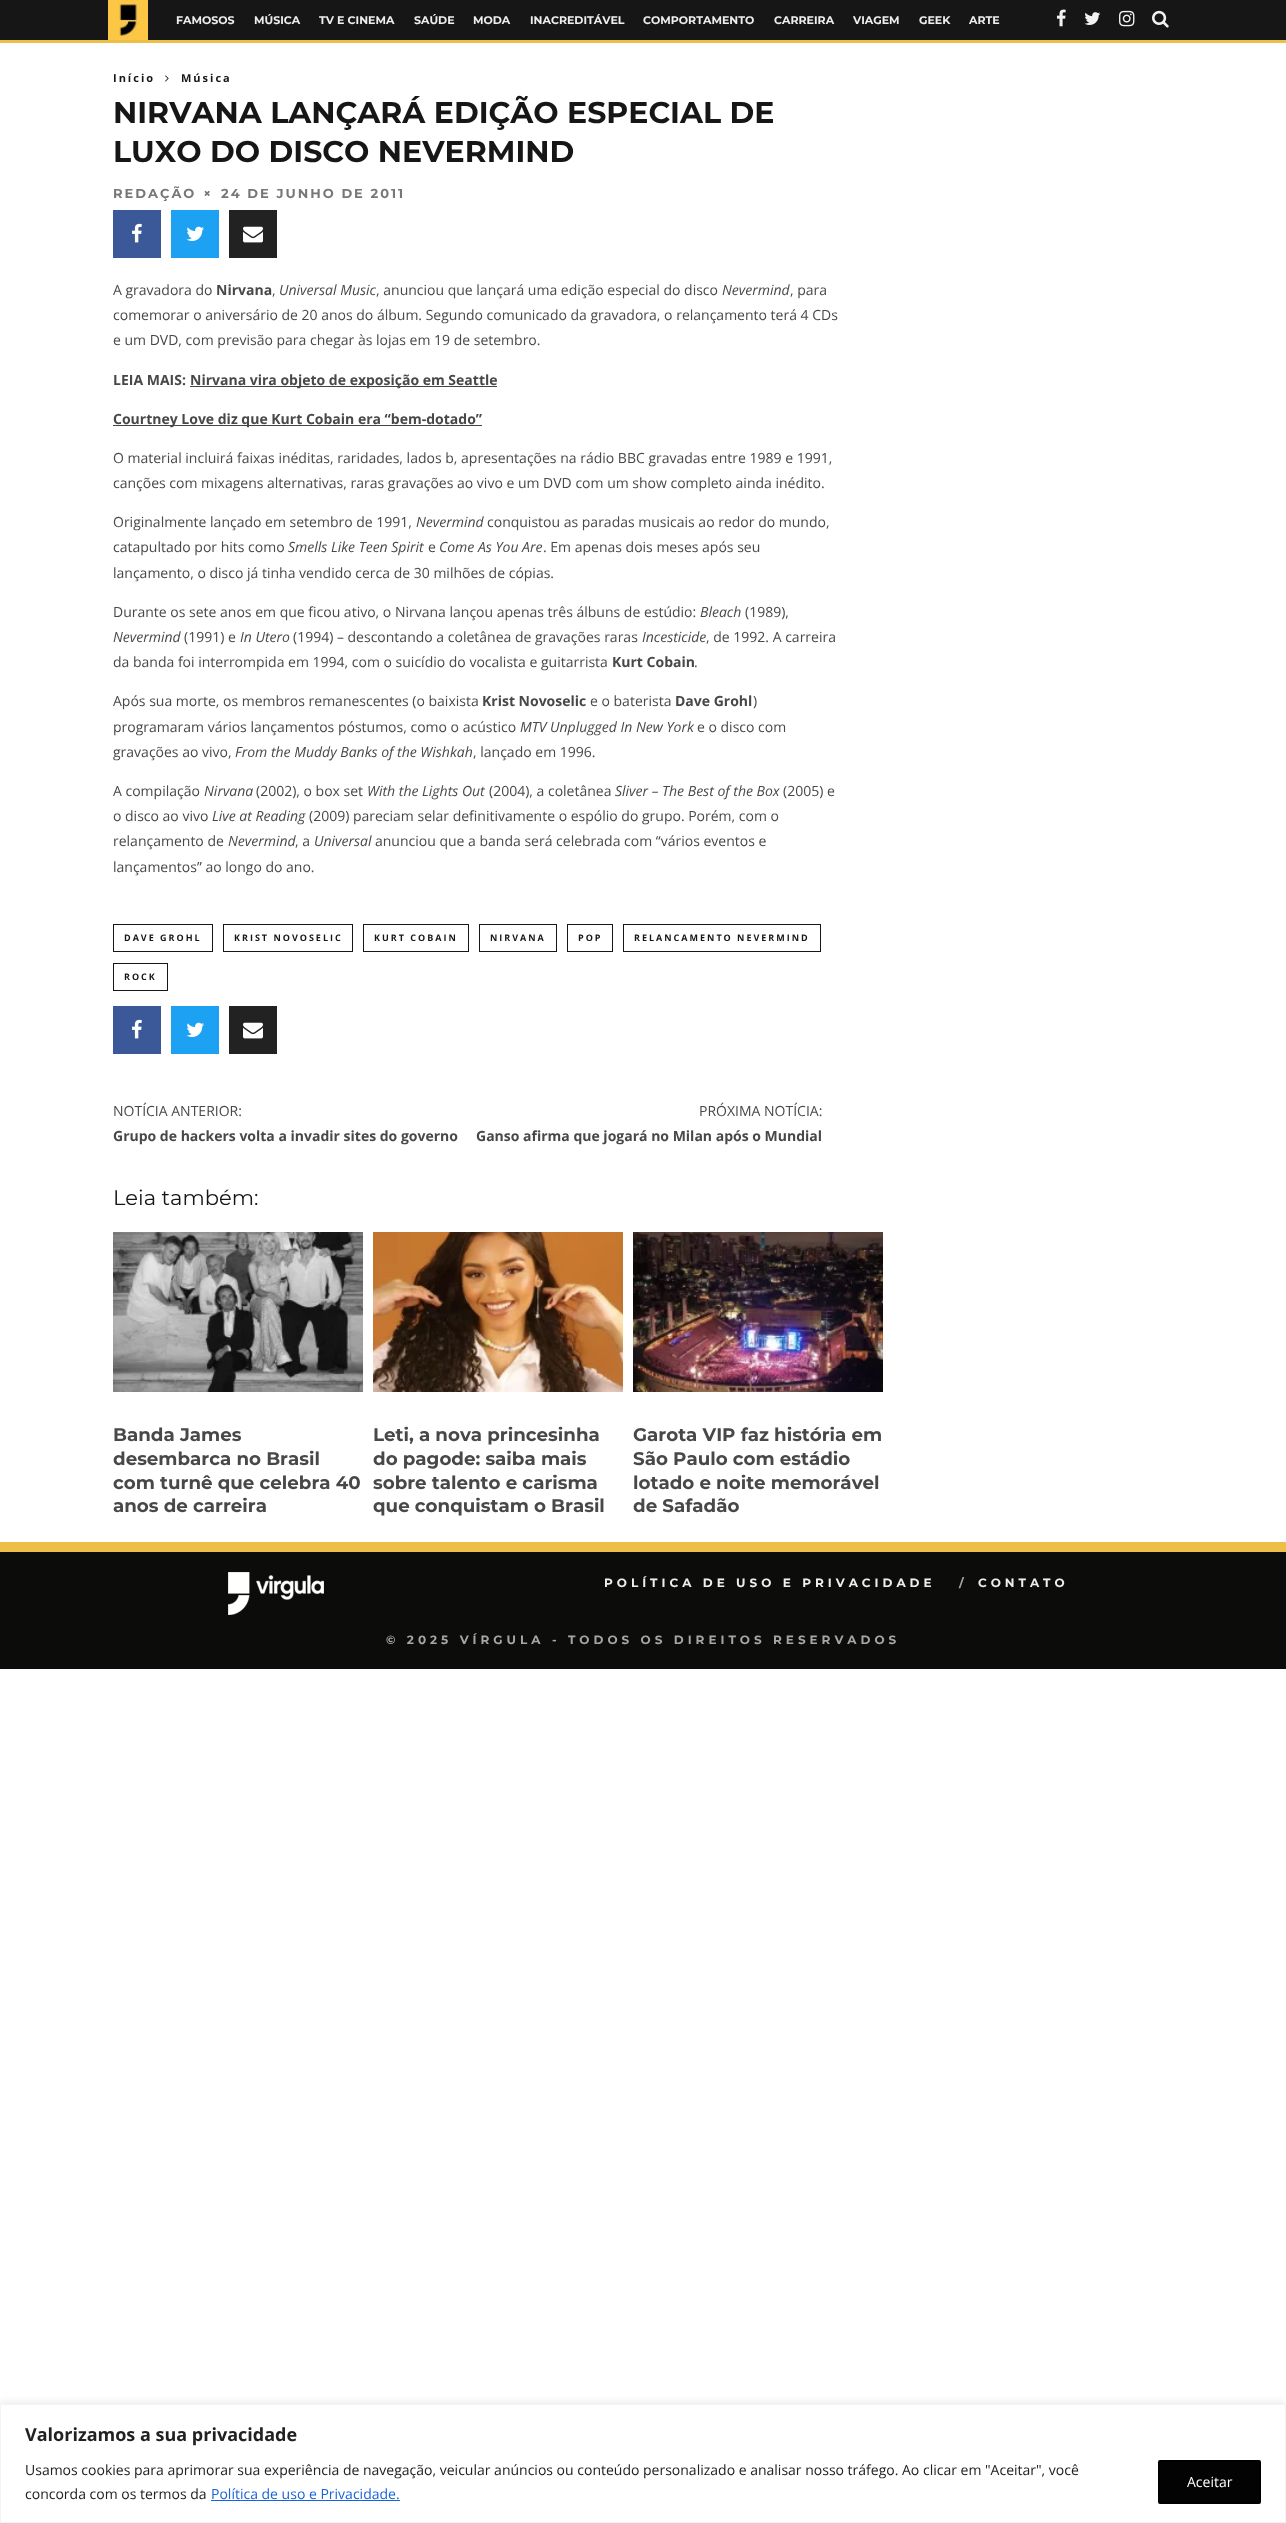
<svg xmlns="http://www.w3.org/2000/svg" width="1286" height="2523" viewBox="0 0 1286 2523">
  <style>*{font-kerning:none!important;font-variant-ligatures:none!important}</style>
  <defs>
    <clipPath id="clip1"><rect x="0" y="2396" width="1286" height="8"/></clipPath>
    <filter id="blur1" x="-50%" y="-200%" width="200%" height="500%"><feGaussianBlur stdDeviation="5"/></filter>
  </defs>
  <rect width="100%" height="100%" fill="#ffffff"/>
  <rect x="0" y="40" width="1286" height="3" fill="#edbe48"/>
  <rect x="0" y="0" width="1286" height="40" fill="#161616"/>
  <image x="108" y="0" width="40" height="40" href="img1.png"/>
  <text x="176" y="24" font-family="Montserrat" font-size="11" font-weight="bold" fill="#eeeeee">FAMOSOS</text>
  <text x="254" y="24" font-family="Montserrat" font-size="11" font-weight="bold" fill="#eeeeee">MÚSICA</text>
  <text x="319" y="24" font-family="Montserrat" font-size="11" font-weight="bold" fill="#eeeeee">TV E CINEMA</text>
  <text x="414" y="24" font-family="Montserrat" font-size="11" font-weight="bold" fill="#eeeeee">SAÚDE</text>
  <text x="473" y="24" font-family="Montserrat" font-size="11" font-weight="bold" fill="#eeeeee">MODA</text>
  <text x="530" y="24" font-family="Montserrat" font-size="11" font-weight="bold" fill="#eeeeee">INACREDITÁVEL</text>
  <text x="643" y="24" font-family="Montserrat" font-size="11" font-weight="bold" fill="#eeeeee">COMPORTAMENTO</text>
  <text x="774" y="24" font-family="Montserrat" font-size="11" font-weight="bold" fill="#eeeeee">CARREIRA</text>
  <text x="853" y="24" font-family="Montserrat" font-size="11" font-weight="bold" fill="#eeeeee">VIAGEM</text>
  <text x="919" y="24" font-family="Montserrat" font-size="11" font-weight="bold" fill="#eeeeee">GEEK</text>
  <text x="969" y="24" font-family="Montserrat" font-size="11" font-weight="bold" fill="#eeeeee">ARTE</text>
  <image x="1056" y="9" width="10" height="18" href="img2.png"/>
  <image x="1084" y="12" width="17" height="13" href="img3.png"/>
  <image x="1119" y="10" width="16" height="17" href="img4.png"/>
  <image x="1152" y="10" width="17" height="18" href="img5.png"/>
  <text x="113" y="82" font-family="Open Sans" font-size="11" font-weight="bold" letter-spacing="2" fill="#161616">Início</text>
  <image x="165" y="75" width="4" height="7" href="img6.png"/>
  <text x="181" y="82" font-family="Open Sans" font-size="11" font-weight="bold" letter-spacing="2" fill="#161616">Música</text>
  <text x="113" y="123" font-family="Montserrat" font-size="30" font-weight="bold" fill="#161616">NIRVANA LANÇARÁ EDIÇÃO ESPECIAL DE</text>
  <text x="113" y="162" font-family="Montserrat" font-size="30" font-weight="bold" fill="#161616">LUXO DO DISCO NEVERMIND</text>
  <text x="113" y="198" font-family="Montserrat" font-size="13" font-weight="bold" letter-spacing="2" fill="#777777">REDAÇÃO</text>
  <image x="204" y="190" width="6" height="6" href="img7.png"/>
  <text x="221" y="198" font-family="Montserrat" font-size="13" font-weight="bold" letter-spacing="2" fill="#777777">24 DE JUNHO DE 2011</text>
  <rect x="113" y="210" width="48" height="48" fill="#3b5998"/>
  <image x="132" y="223" width="10" height="20" href="img8.png"/>
  <rect x="171" y="210" width="48" height="48" fill="#1da1f2"/>
  <image x="186" y="226" width="18" height="15" href="img9.png"/>
  <rect x="229" y="210" width="48" height="48" fill="#222222"/>
  <image x="243" y="226" width="20" height="17" href="img10.png"/>
  <text x="113" y="295" font-family="Open Sans" font-size="14" fill="#484848">A gravadora do</text>
  <text x="216" y="295" font-family="Open Sans" font-size="14" font-weight="bold" fill="#484848">Nirvana</text>
  <text x="272" y="295" font-family="Open Sans" font-size="14" fill="#484848">,</text>
  <text x="279" y="295" font-family="Open Sans" font-size="14" font-style="italic" fill="#484848">Universal Music</text>
  <text x="376" y="295" font-family="Open Sans" font-size="14" fill="#484848">, anunciou que lançará uma edição especial do disco</text>
  <text x="722" y="295" font-family="Open Sans" font-size="14" font-style="italic" fill="#484848">Nevermind</text>
  <text x="790" y="295" font-family="Open Sans" font-size="14" fill="#484848">, para</text>
  <text x="113" y="320" font-family="Open Sans" font-size="14" fill="#484848">comemorar o aniversário de 20 anos do álbum. Segundo comunicado da gravadora, o relançamento terá 4 CDs</text>
  <text x="113" y="345" font-family="Open Sans" font-size="14" fill="#484848">e um DVD, com previsão para chegar às lojas em 19 de setembro.</text>
  <text x="113" y="385" font-family="Open Sans" font-size="14" font-weight="bold" fill="#484848">LEIA MAIS:</text>
  <rect x="190" y="386" width="307" height="1" fill="#444444"/>
  <text x="190" y="385" font-family="Open Sans" font-size="14" font-weight="bold" fill="#484848">Nirvana vira objeto de exposição em Seattle</text>
  <rect x="113" y="425" width="369" height="1" fill="#444444"/>
  <text x="113" y="424" font-family="Open Sans" font-size="14" font-weight="bold" fill="#484848">Courtney Love diz que Kurt Cobain era “bem-dotado”</text>
  <text x="113" y="463" font-family="Open Sans" font-size="14" fill="#484848">O material incluirá faixas inéditas, raridades, lados b, apresentações na rádio BBC gravadas entre 1989 e 1991,</text>
  <text x="113" y="488" font-family="Open Sans" font-size="14" fill="#484848">canções com mixagens alternativas, raras gravações ao vivo e um DVD com um show completo ainda inédito.</text>
  <text x="113" y="527" font-family="Open Sans" font-size="14" fill="#484848">Originalmente lançado em setembro de 1991,</text>
  <text x="416" y="527" font-family="Open Sans" font-size="14" font-style="italic" fill="#484848">Nevermind</text>
  <text x="487" y="527" font-family="Open Sans" font-size="14" fill="#484848">conquistou as paradas musicais ao redor do mundo,</text>
  <text x="113" y="552" font-family="Open Sans" font-size="14" fill="#484848">catapultado por hits como</text>
  <text x="288" y="552" font-family="Open Sans" font-size="14" font-style="italic" fill="#484848">Smells Like Teen Spirit</text>
  <text x="428" y="552" font-family="Open Sans" font-size="14" fill="#484848">e</text>
  <text x="439" y="552" font-family="Open Sans" font-size="14" font-style="italic" fill="#484848">Come As You Are</text>
  <text x="543" y="552" font-family="Open Sans" font-size="14" fill="#484848">. Em apenas dois meses após seu</text>
  <text x="113" y="578" font-family="Open Sans" font-size="14" fill="#484848">lançamento, o disco já tinha vendido cerca de 30 milhões de cópias.</text>
  <text x="113" y="617" font-family="Open Sans" font-size="14" fill="#484848">Durante os sete anos em que ficou ativo, o Nirvana lançou apenas três álbuns de estúdio:</text>
  <text x="700" y="617" font-family="Open Sans" font-size="14" font-style="italic" fill="#484848">Bleach</text>
  <text x="745" y="617" font-family="Open Sans" font-size="14" fill="#484848">(1989),</text>
  <text x="113" y="642" font-family="Open Sans" font-size="14" font-style="italic" fill="#484848">Nevermind</text>
  <text x="184" y="642" font-family="Open Sans" font-size="14" fill="#484848">(1991) e</text>
  <text x="240" y="642" font-family="Open Sans" font-size="14" font-style="italic" fill="#484848">In Utero</text>
  <text x="293" y="642" font-family="Open Sans" font-size="14" fill="#484848">(1994) – descontando a coletânea de gravações raras</text>
  <text x="642" y="642" font-family="Open Sans" font-size="14" font-style="italic" fill="#484848">Incesticide</text>
  <text x="706" y="642" font-family="Open Sans" font-size="14" fill="#484848">, de 1992. A carreira</text>
  <text x="113" y="667" font-family="Open Sans" font-size="14" fill="#484848">da banda foi interrompida em 1994, com o suicídio do vocalista e guitarrista</text>
  <text x="612" y="667" font-family="Open Sans" font-size="14" font-weight="bold" fill="#484848">Kurt Cobain</text>
  <text x="694" y="667" font-family="Open Sans" font-size="14" fill="#484848">.</text>
  <text x="113" y="706" font-family="Open Sans" font-size="14" fill="#484848">Após sua morte, os membros remanescentes (o baixista</text>
  <text x="482" y="706" font-family="Open Sans" font-size="14" font-weight="bold" fill="#484848">Krist Novoselic</text>
  <text x="590" y="706" font-family="Open Sans" font-size="14" fill="#484848">e o baterista</text>
  <text x="675" y="706" font-family="Open Sans" font-size="14" font-weight="bold" fill="#484848">Dave Grohl</text>
  <text x="753" y="706" font-family="Open Sans" font-size="14" fill="#484848">)</text>
  <text x="113" y="732" font-family="Open Sans" font-size="14" fill="#484848">programaram vários lançamentos póstumos, como o acústico</text>
  <text x="520" y="732" font-family="Open Sans" font-size="14" font-style="italic" fill="#484848">MTV Unplugged In New York</text>
  <text x="697" y="732" font-family="Open Sans" font-size="14" fill="#484848">e o disco com</text>
  <text x="113" y="757" font-family="Open Sans" font-size="14" fill="#484848">gravações ao vivo,</text>
  <text x="235" y="757" font-family="Open Sans" font-size="14" font-style="italic" fill="#484848">From the Muddy Banks of the Wishkah</text>
  <text x="473" y="757" font-family="Open Sans" font-size="14" fill="#484848">, lançado em 1996.</text>
  <text x="113" y="796" font-family="Open Sans" font-size="14" fill="#484848">A compilação</text>
  <text x="204" y="796" font-family="Open Sans" font-size="14" font-style="italic" fill="#484848">Nirvana</text>
  <text x="256" y="796" font-family="Open Sans" font-size="14" fill="#484848">(2002), o box set</text>
  <text x="367" y="796" font-family="Open Sans" font-size="14" font-style="italic" fill="#484848">With the Lights Out</text>
  <text x="489" y="796" font-family="Open Sans" font-size="14" fill="#484848">(2004), a coletânea</text>
  <text x="615" y="796" font-family="Open Sans" font-size="14" font-style="italic" fill="#484848">Sliver – The Best of the Box</text>
  <text x="783" y="796" font-family="Open Sans" font-size="14" fill="#484848">(2005) e</text>
  <text x="113" y="821" font-family="Open Sans" font-size="14" fill="#484848">o disco ao vivo</text>
  <text x="212" y="821" font-family="Open Sans" font-size="14" font-style="italic" fill="#484848">Live at Reading</text>
  <text x="309" y="821" font-family="Open Sans" font-size="14" fill="#484848">(2009) pareciam selar definitivamente o espólio do grupo. Porém, com o</text>
  <text x="113" y="846" font-family="Open Sans" font-size="14" fill="#484848">relançamento de</text>
  <text x="228" y="846" font-family="Open Sans" font-size="14" font-style="italic" fill="#484848">Nevermind</text>
  <text x="295" y="846" font-family="Open Sans" font-size="14" fill="#484848">, a</text>
  <text x="314" y="846" font-family="Open Sans" font-size="14" font-style="italic" fill="#484848">Universal</text>
  <text x="375" y="846" font-family="Open Sans" font-size="14" fill="#484848">anunciou que a banda será celebrada com “vários eventos e</text>
  <text x="113" y="872" font-family="Open Sans" font-size="14" fill="#484848">lançamentos” ao longo do ano.</text>
  <rect x="113.5" y="924.5" width="99" height="27" fill="none" stroke="#161616"/>
  <text x="124" y="941" font-family="Open Sans" font-size="9" font-weight="bold" letter-spacing="2" fill="#161616">DAVE GROHL</text>
  <rect x="223.5" y="924.5" width="129" height="27" fill="none" stroke="#161616"/>
  <text x="234" y="941" font-family="Open Sans" font-size="9" font-weight="bold" letter-spacing="2" fill="#161616">KRIST NOVOSELIC</text>
  <rect x="363.5" y="924.5" width="105" height="27" fill="none" stroke="#161616"/>
  <text x="374" y="941" font-family="Open Sans" font-size="9" font-weight="bold" letter-spacing="2" fill="#161616">KURT COBAIN</text>
  <rect x="479.5" y="924.5" width="77" height="27" fill="none" stroke="#161616"/>
  <text x="490" y="941" font-family="Open Sans" font-size="9" font-weight="bold" letter-spacing="2" fill="#161616">NIRVANA</text>
  <rect x="567.5" y="924.5" width="45" height="27" fill="none" stroke="#161616"/>
  <text x="578" y="941" font-family="Open Sans" font-size="9" font-weight="bold" letter-spacing="2" fill="#161616">POP</text>
  <rect x="623.5" y="924.5" width="197" height="27" fill="none" stroke="#161616"/>
  <text x="634" y="941" font-family="Open Sans" font-size="9" font-weight="bold" letter-spacing="2" fill="#161616">RELANCAMENTO NEVERMIND</text>
  <rect x="113.5" y="963.5" width="54" height="27" fill="none" stroke="#161616"/>
  <text x="124" y="980" font-family="Open Sans" font-size="9" font-weight="bold" letter-spacing="2" fill="#161616">ROCK</text>
  <rect x="113" y="1006" width="48" height="48" fill="#3b5998"/>
  <image x="132" y="1019" width="10" height="20" href="img8.png"/>
  <rect x="171" y="1006" width="48" height="48" fill="#1da1f2"/>
  <image x="186" y="1022" width="18" height="15" href="img9.png"/>
  <rect x="229" y="1006" width="48" height="48" fill="#222222"/>
  <image x="243" y="1022" width="20" height="17" href="img10.png"/>
  <text x="113" y="1116" font-family="Open Sans" font-size="14" fill="#484848">NOTÍCIA ANTERIOR:</text>
  <text x="113" y="1141" font-family="Open Sans" font-size="14" font-weight="bold" fill="#484848">Grupo de hackers volta a invadir sites do governo</text>
  <text x="699" y="1116" font-family="Open Sans" font-size="14" fill="#484848">PRÓXIMA NOTÍCIA:</text>
  <text x="476" y="1141" font-family="Open Sans" font-size="14" font-weight="bold" fill="#484848">Ganso afirma que jogará no Milan após o Mundial</text>
  <text x="113" y="1205" font-family="Montserrat" font-size="21" fill="#161616">Leia também:</text>
  <image x="113" y="1232" width="250" height="160" href="img11.png"/>
  <text x="113" y="1441" font-family="Montserrat" font-size="18.25" font-weight="bold" fill="#484848">Banda James</text>
  <text x="113" y="1465" font-family="Montserrat" font-size="18.25" font-weight="bold" fill="#484848">desembarca no Brasil</text>
  <text x="113" y="1489" font-family="Montserrat" font-size="18.25" font-weight="bold" fill="#484848">com turnê que celebra 40</text>
  <text x="113" y="1512" font-family="Montserrat" font-size="18.25" font-weight="bold" fill="#484848">anos de carreira</text>
  <image x="373" y="1232" width="250" height="160" href="img12.png"/>
  <text x="373" y="1441" font-family="Montserrat" font-size="18.25" font-weight="bold" fill="#484848">Leti, a nova princesinha</text>
  <text x="373" y="1465" font-family="Montserrat" font-size="18.25" font-weight="bold" fill="#484848">do pagode: saiba mais</text>
  <text x="373" y="1489" font-family="Montserrat" font-size="18.25" font-weight="bold" fill="#484848">sobre talento e carisma</text>
  <text x="373" y="1512" font-family="Montserrat" font-size="18.25" font-weight="bold" fill="#484848">que conquistam o Brasil</text>
  <image x="633" y="1232" width="250" height="160" href="img13.png"/>
  <text x="633" y="1441" font-family="Montserrat" font-size="18.25" font-weight="bold" fill="#484848">Garota VIP faz história em</text>
  <text x="633" y="1465" font-family="Montserrat" font-size="18.25" font-weight="bold" fill="#484848">São Paulo com estádio</text>
  <text x="633" y="1489" font-family="Montserrat" font-size="18.25" font-weight="bold" fill="#484848">lotado e noite memorável</text>
  <text x="633" y="1512" font-family="Montserrat" font-size="18.25" font-weight="bold" fill="#484848">de Safadão</text>
  <rect x="0" y="1542" width="1286" height="10" fill="#edbe48"/>
  <rect x="0" y="1552" width="1286" height="117" fill="#0c0c0b"/>
  <image x="228" y="1572" width="96" height="43" href="img14.png"/>
  <text x="604" y="1587" font-family="Montserrat" font-size="12" font-weight="bold" letter-spacing="4" fill="#eeeeee">POLÍTICA DE USO E PRIVACIDADE</text>
  <text x="959" y="1587" font-family="Montserrat" font-size="12" font-weight="bold" letter-spacing="4" fill="#a6a6a6">/</text>
  <text x="978" y="1587" font-family="Montserrat" font-size="12" font-weight="bold" letter-spacing="4" fill="#eeeeee">CONTATO</text>
  <text x="386" y="1644" font-family="Montserrat" font-size="12" font-weight="bold" letter-spacing="4" fill="#a6a6a6">© 2025 VÍRGULA - TODOS OS DIREITOS RESERVADOS</text>
  <g clip-path="url(#clip1)">
    <rect x="0" y="2403" width="1286" height="119" fill="#acabab" fill-opacity="0.3" filter="url(#blur1)"/>
  </g>
  <rect x="0.5" y="2404.5" width="1285" height="118" fill="none" stroke="#f4f4f4"/>
  <text x="25" y="2441" font-family="Open Sans" font-size="18" font-weight="bold" fill="#212121">Valorizamos a sua privacidade</text>
  <text x="25" y="2475" font-family="Open Sans" font-size="14" fill="#212121">Usamos cookies para aprimorar sua experiência de navegação, veicular anúncios ou conteúdo personalizado e analisar nosso tráfego. Ao clicar em "Aceitar", você</text>
  <text x="25" y="2499" font-family="Open Sans" font-size="14" fill="#212121">concorda com os termos da</text>
  <text x="211" y="2499" font-family="Open Sans" font-size="14" fill="#1863dc">Política de uso e Privacidade.</text>
  <rect x="211" y="2500" width="189" height="1" fill="#1863dc"/>
  <rect x="1159" y="2461" width="101" height="42" rx="1" fill="#030303" stroke="#000000" stroke-width="2"/>
  <text x="1187" y="2487" font-family="Open Sans" font-size="14" fill="#ffffff">Aceitar</text>
</svg>
